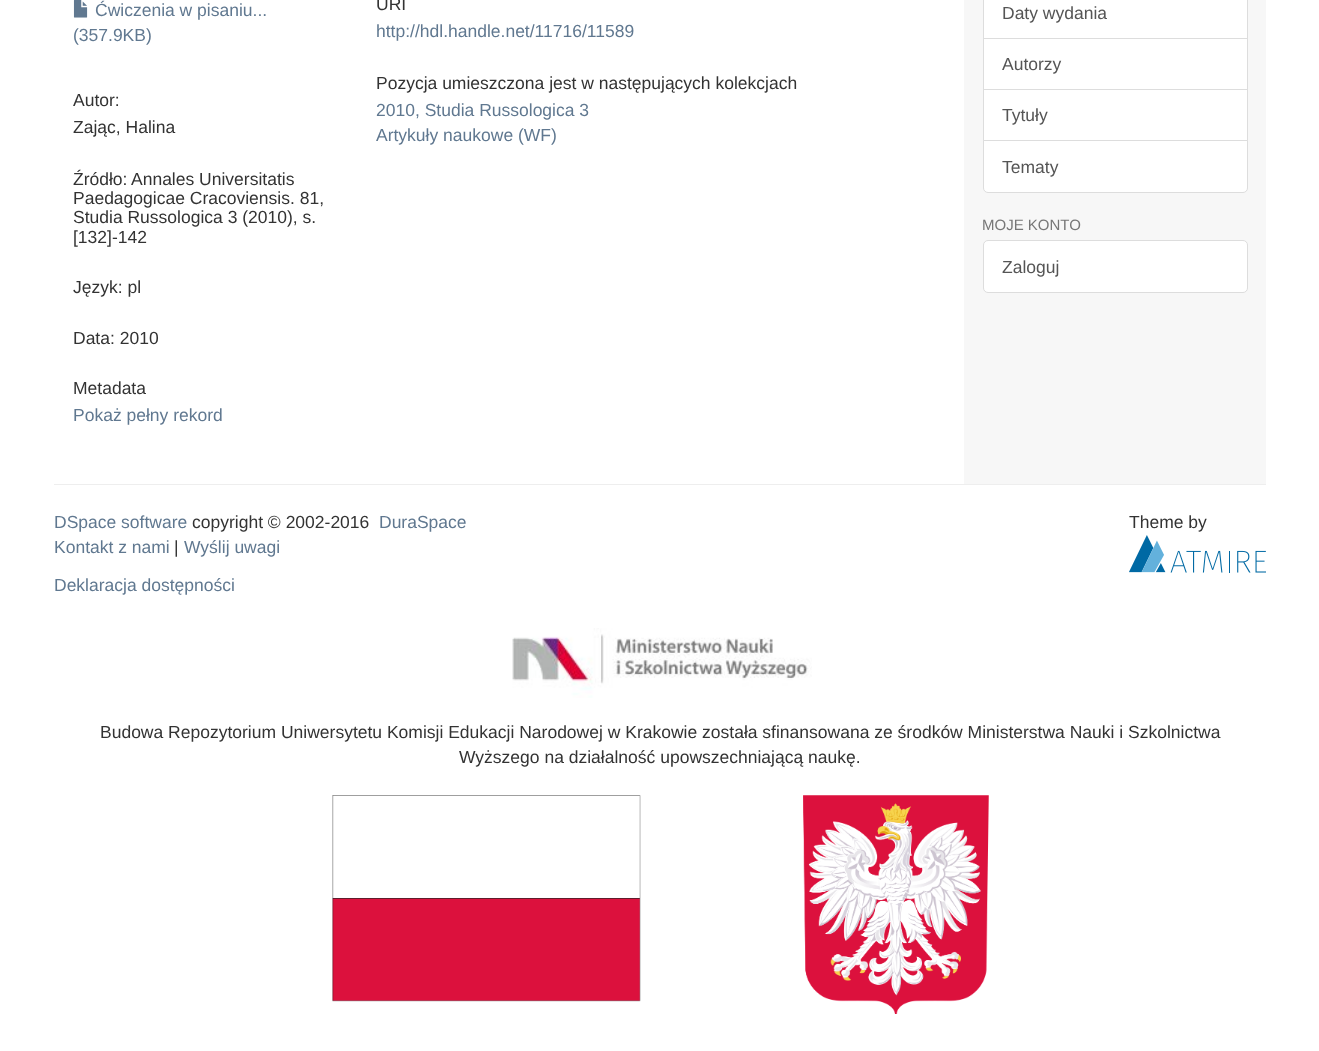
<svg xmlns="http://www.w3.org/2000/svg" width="1319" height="1051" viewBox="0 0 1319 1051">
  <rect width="100%" height="100%" fill="#ffffff"/>
  <rect x="964" y="0" width="302" height="484" fill="#f7f7f7"/>
  <image x="73" y="0" width="15" height="18" href="img1.png"/>
  <text x="95" y="16" font-family="Liberation Sans" font-size="17.5" fill="#607890">Ćwiczenia w pisaniu...</text>
  <text x="73" y="41" font-family="Liberation Sans" font-size="17.5" fill="#607890">(357.9KB)</text>
  <text x="73" y="106" font-family="Liberation Sans" font-size="17.5" fill="#333333">Autor:</text>
  <text x="73" y="133" font-family="Liberation Sans" font-size="17.5" fill="#333333">Zając, Halina</text>
  <text x="73" y="185" font-family="Liberation Sans" font-size="17.5" fill="#333333">Źródło:</text>
  <text x="131" y="185" font-family="Liberation Sans" font-size="17.5" fill="#333333">Annales Universitatis</text>
  <text x="73" y="204" font-family="Liberation Sans" font-size="17.5" fill="#333333">Paedagogicae Cracoviensis. 81,</text>
  <text x="73" y="223" font-family="Liberation Sans" font-size="17.5" fill="#333333">Studia Russologica 3 (2010), s.</text>
  <text x="73" y="243" font-family="Liberation Sans" font-size="17.5" fill="#333333">[132]-142</text>
  <text x="73" y="293" font-family="Liberation Sans" font-size="17.5" fill="#333333">Język: pl</text>
  <text x="73" y="344" font-family="Liberation Sans" font-size="17.5" fill="#333333">Data: 2010</text>
  <text x="73" y="394" font-family="Liberation Sans" font-size="17.5" fill="#333333">Metadata</text>
  <text x="73" y="421" font-family="Liberation Sans" font-size="17.5" fill="#607890">Pokaż pełny rekord</text>
  <text x="376" y="10" font-family="Liberation Sans" font-size="17.5" fill="#333333">URI</text>
  <text x="376" y="37" font-family="Liberation Sans" font-size="17.5" fill="#607890">http://hdl.handle.net/11716/11589</text>
  <text x="376" y="89" font-family="Liberation Sans" font-size="17.5" fill="#333333">Pozycja umieszczona jest w następujących kolekcjach</text>
  <text x="376" y="116" font-family="Liberation Sans" font-size="17.5" fill="#607890">2010, Studia Russologica 3</text>
  <text x="376" y="141" font-family="Liberation Sans" font-size="17.5" fill="#607890">Artykuły naukowe (WF)</text>
  <rect x="983.5" y="-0.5" width="264" height="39" fill="#ffffff" stroke="#dddddd"/>
  <text x="1002" y="19" font-family="Liberation Sans" font-size="17.5" fill="#555555">Daty wydania</text>
  <rect x="983.5" y="38.5" width="264" height="51" fill="#ffffff" stroke="#dddddd"/>
  <text x="1002" y="70" font-family="Liberation Sans" font-size="17.5" fill="#555555">Autorzy</text>
  <rect x="983.5" y="89.5" width="264" height="51" fill="#ffffff" stroke="#dddddd"/>
  <text x="1002" y="121" font-family="Liberation Sans" font-size="17.5" fill="#555555">Tytuły</text>
  <path d="M983.5 140.5H1247.5V188C1247.5 190.5 1245.5 192.5 1243 192.5H988C985.5 192.5 983.5 190.5 983.5 188Z" fill="#ffffff" stroke="#dddddd"/>
  <text x="1002" y="173" font-family="Liberation Sans" font-size="17.5" fill="#555555">Tematy</text>
  <text x="982" y="230" font-family="Liberation Sans" font-size="15" fill="#777777">MOJE KONTO</text>
  <rect x="983.5" y="240.5" width="264" height="52" rx="4.5" fill="#ffffff" stroke="#dddddd"/>
  <text x="1002" y="273" font-family="Liberation Sans" font-size="17.5" fill="#555555">Zaloguj</text>
  <rect x="54" y="484" width="1212" height="1" fill="#eeeeee"/>
  <text x="54" y="528" font-family="Liberation Sans" font-size="17.5" fill="#607890">DSpace software</text>
  <text x="192" y="528" font-family="Liberation Sans" font-size="17.5" fill="#333333">copyright © 2002-2016</text>
  <text x="379" y="528" font-family="Liberation Sans" font-size="17.5" fill="#607890">DuraSpace</text>
  <text x="54" y="553" font-family="Liberation Sans" font-size="17.5" fill="#607890">Kontakt z nami</text>
  <text x="174" y="553" font-family="Liberation Sans" font-size="17.5" fill="#333333">|</text>
  <text x="184" y="553" font-family="Liberation Sans" font-size="17.5" fill="#607890">Wyślij uwagi</text>
  <text x="54" y="591" font-family="Liberation Sans" font-size="17.5" fill="#607890">Deklaracja dostępności</text>
  <text x="1129" y="528" font-family="Liberation Sans" font-size="17.5" fill="#333333">Theme by</text>
  <image x="1129" y="535" width="137" height="38" href="img2.png"/>
  <image x="512" y="628" width="300" height="70" href="img3.png"/>
  <text x="100" y="738" font-family="Liberation Sans" font-size="17.5" fill="#333333">Budowa Repozytorium Uniwersytetu Komisji Edukacji Narodowej w Krakowie została sfinansowana ze środków Ministerstwa Nauki i Szkolnictwa</text>
  <text x="459" y="763" font-family="Liberation Sans" font-size="17.5" fill="#333333">Wyższego na działalność upowszechniającą naukę.</text>
  <image x="332" y="795" width="657" height="219" href="img4.png"/>
</svg>
